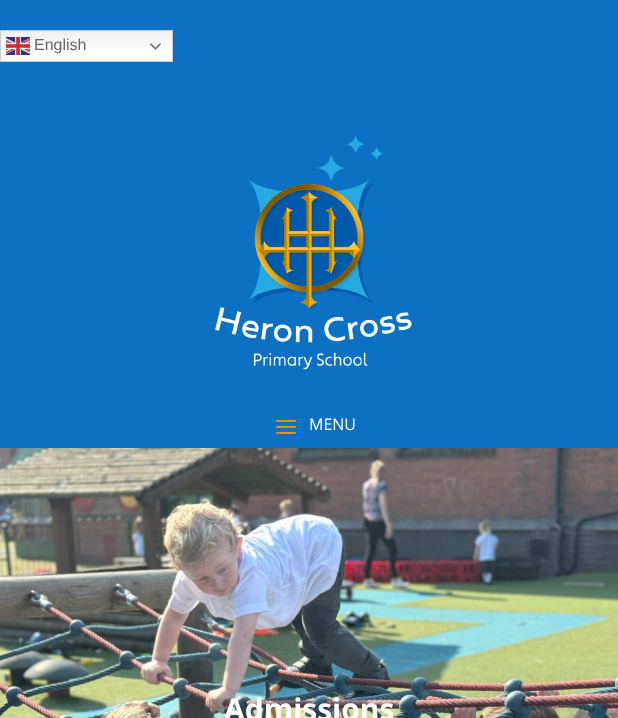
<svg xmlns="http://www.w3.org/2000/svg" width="618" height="718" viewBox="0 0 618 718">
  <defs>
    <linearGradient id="g1" gradientUnits="userSpaceOnUse" x1="87" y1="30" x2="87" y2="62"><stop offset="0" stop-color="#efefef"/><stop offset="0.7" stop-color="#ffffff"/></linearGradient>
  </defs>
  <rect width="100%" height="100%" fill="#ffffff"/>
  <rect x="0" y="0" width="618" height="448" fill="#0c71c3"/>
  <rect x="1" y="31" width="171" height="30" fill="url(#g1)"/>
  <rect x="0.5" y="30.5" width="172" height="31" fill="none" stroke="#cccccc"/>
  <image x="6" y="37" width="24" height="18" href="img1.png"/>
  <text x="34" y="50" font-family="Liberation Sans" font-size="16" fill="#666666">English</text>
  <image x="150" y="43" width="11" height="7" href="img2.png"/>
  <image x="215" y="135" width="197" height="235" href="img3.png"/>
  <image x="276" y="419" width="20" height="15" href="img4.png"/>
  <text x="309" y="430" font-family="Open Sans" font-size="16" fill="#ffffff">MENU</text>
  <image x="0" y="448" width="618" height="270" href="img5.png"/>
  <text x="224" y="720" font-family="Open Sans" font-size="30" font-weight="bold" fill="#ffffff">Admissions</text>
</svg>
